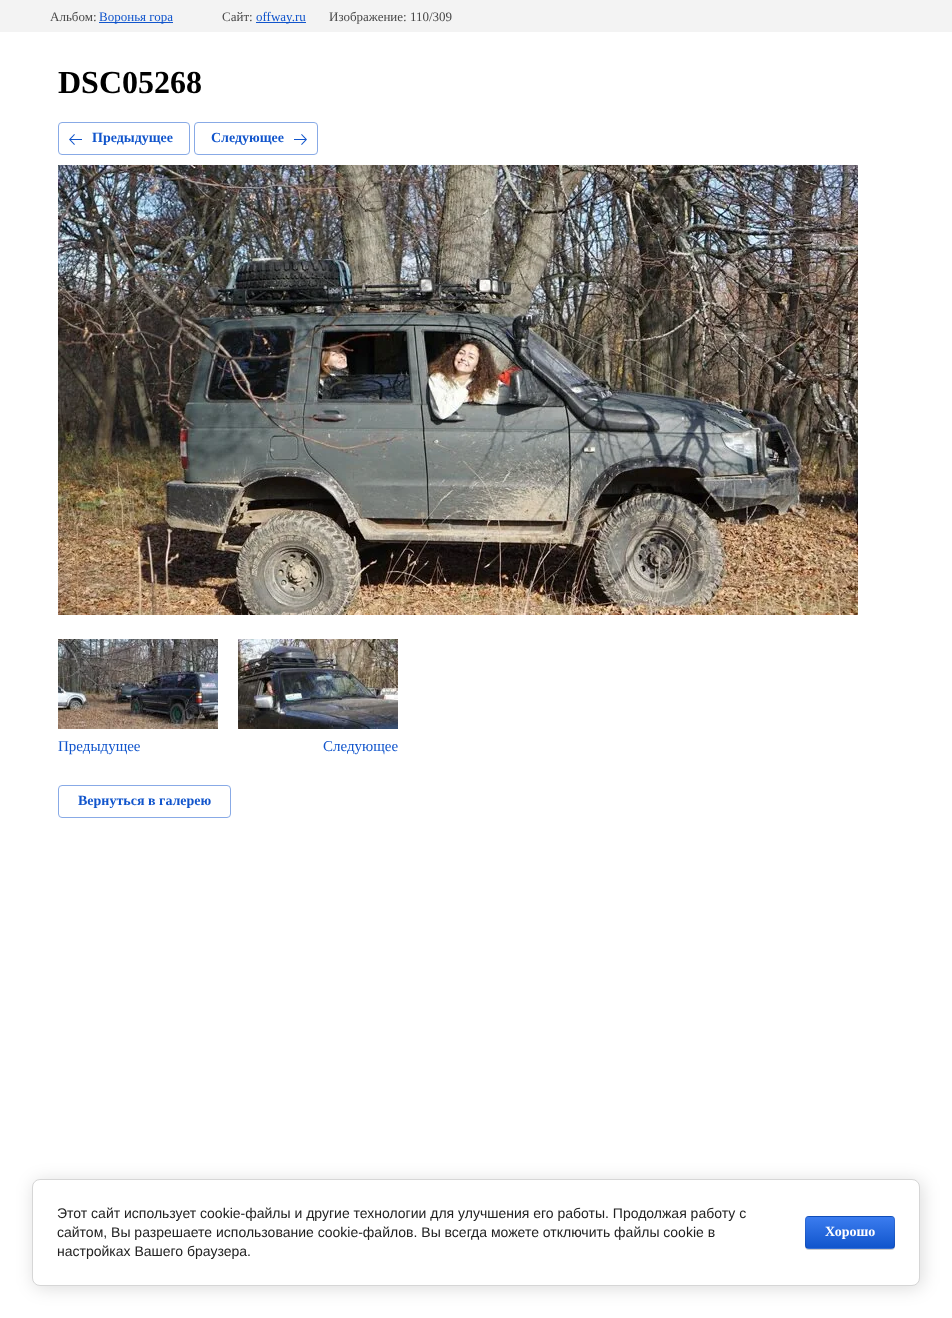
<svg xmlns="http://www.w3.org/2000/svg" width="952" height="1318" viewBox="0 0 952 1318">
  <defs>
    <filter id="blur1" x="-50%" y="-200%" width="200%" height="500%"><feGaussianBlur stdDeviation="9"/></filter>
    <filter id="blur2" x="-50%" y="-200%" width="200%" height="500%"><feGaussianBlur stdDeviation="0.5"/></filter>
    <clipPath id="clip1"><rect x="805" y="1216" width="90" height="33" rx="4"/></clipPath>
    <linearGradient id="g1" gradientUnits="userSpaceOnUse" x1="850" y1="1186" x2="850" y2="1217"><stop offset="0" stop-color="#3b7cef"/><stop offset="1" stop-color="#1155cc"/></linearGradient>
    <linearGradient id="g2" gradientUnits="userSpaceOnUse" x1="850" y1="1217" x2="850" y2="1248"><stop offset="0" stop-color="#3b7cef"/><stop offset="1" stop-color="#1155cc"/></linearGradient>
    <linearGradient id="g3" gradientUnits="userSpaceOnUse" x1="850" y1="1248" x2="850" y2="1279"><stop offset="0" stop-color="#3b7cef"/><stop offset="1" stop-color="#1155cc"/></linearGradient>
  </defs>
  <rect width="100%" height="100%" fill="#ffffff"/>
  <rect x="0" y="0" width="952" height="32" fill="#f3f3f3"/>
  <text x="50" y="21" font-family="Liberation Serif" font-size="13" fill="#484848">Альбом:</text>
  <rect x="99" y="22" width="74" height="1" fill="#1155cc"/>
  <text x="99" y="21" font-family="Liberation Serif" font-size="13" fill="#1155cc">Воронья гора</text>
  <text x="222" y="21" font-family="Liberation Serif" font-size="13" fill="#484848">Сайт:</text>
  <rect x="256" y="22" width="50" height="1" fill="#1155cc"/>
  <text x="256" y="21" font-family="Liberation Serif" font-size="13" fill="#1155cc">offway.ru</text>
  <text x="329" y="21" font-family="Liberation Serif" font-size="13" fill="#484848">Изображение: 110/309</text>
  <text x="58" y="93" font-family="Liberation Serif" font-size="32" font-weight="bold" fill="#000000">DSC05268</text>
  <rect x="58.5" y="122.5" width="131" height="32" rx="3.5" fill="none" stroke="#88aae6"/>
  <image x="69" y="134" width="13" height="11" href="img1.png"/>
  <text x="92" y="142" font-family="Liberation Serif" font-size="14" font-weight="bold" fill="#1155cc">Предыдущее</text>
  <rect x="194.5" y="122.5" width="123" height="32" rx="3.5" fill="none" stroke="#88aae6"/>
  <text x="211" y="142" font-family="Liberation Serif" font-size="14" font-weight="bold" fill="#1155cc">Следующее</text>
  <image x="294" y="134" width="13" height="11" href="img2.png"/>
  <image x="58" y="165" width="800" height="450" href="img3.png"/>
  <image x="58" y="639" width="160" height="90" href="img4.png"/>
  <text x="58" y="751" font-family="Liberation Serif" font-size="15" fill="#1155cc">Предыдущее</text>
  <image x="238" y="639" width="160" height="90" href="img5.png"/>
  <text x="323" y="751" font-family="Liberation Serif" font-size="15" fill="#1155cc">Следующее</text>
  <rect x="58.5" y="785.5" width="172" height="32" rx="3.5" fill="none" stroke="#88aae6"/>
  <text x="78" y="805" font-family="Liberation Serif" font-size="14" font-weight="bold" fill="#1155cc">Вернуться в галерею</text>
  <rect x="34" y="1181" width="888" height="107" rx="8" fill="#000000" fill-opacity="0.14" filter="url(#blur1)"/>
  <rect x="32.5" y="1179.5" width="887" height="106" rx="7.5" fill="#ffffff" stroke="#d6d6d6"/>
  <text x="57" y="1218" font-family="Liberation Sans" font-size="14" fill="#212121">Этот сайт использует cookie-файлы и другие технологии для улучшения его работы. Продолжая работу с</text>
  <text x="57" y="1237" font-family="Liberation Sans" font-size="14" fill="#212121">сайтом, Вы разрешаете использование cookie-файлов. Вы всегда можете отключить файлы cookie в</text>
  <text x="57" y="1256" font-family="Liberation Sans" font-size="14" fill="#212121">настройках Вашего браузера.</text>
  <rect x="805" y="1217" width="90" height="33" rx="4" fill="#000000" fill-opacity="0.2" filter="url(#blur2)"/>
  <g clip-path="url(#clip1)">
    <rect x="805" y="1216" width="90" height="1" fill="url(#g1)"/>
    <rect x="805" y="1217" width="90" height="31" fill="url(#g2)"/>
    <rect x="805" y="1248" width="90" height="1" fill="url(#g3)"/>
  </g>
  <rect x="805.5" y="1216.5" width="89" height="32" rx="3.5" fill="none" stroke="#000000" stroke-opacity="0.1"/>
  <text x="825" y="1236" font-family="Liberation Serif" font-size="14" font-weight="bold" fill="#ffffff">Хорошо</text>
</svg>
